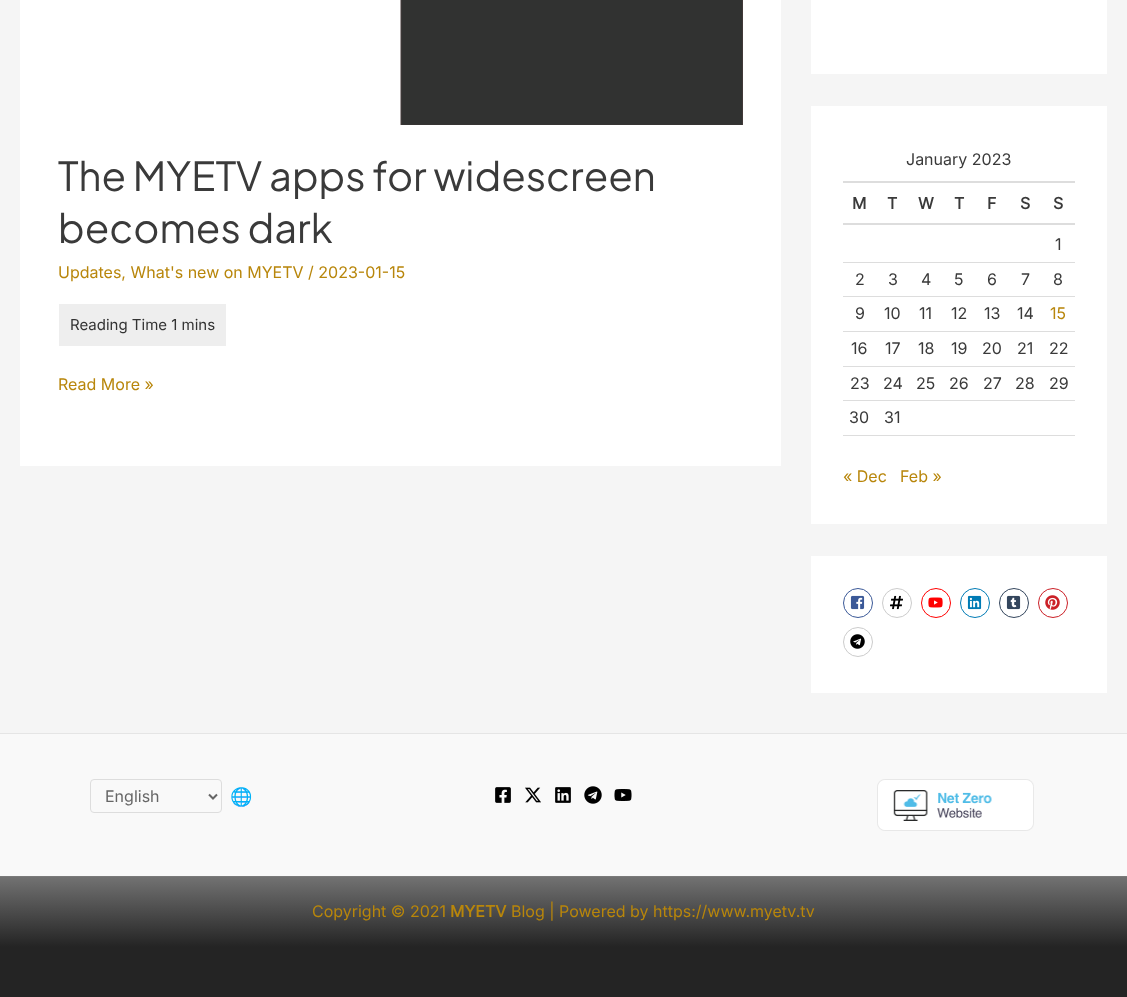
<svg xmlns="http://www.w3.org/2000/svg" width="1127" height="997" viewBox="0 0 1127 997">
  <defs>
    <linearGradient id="g1" gradientUnits="userSpaceOnUse" x1="564" y1="733" x2="564" y2="997"><stop offset="0.1" stop-color="#f5f5f5"/><stop offset="0.81" stop-color="#242424"/></linearGradient>
  </defs>
  <rect width="100%" height="100%" fill="#f5f5f5"/>
  <rect x="20" y="0" width="761" height="466" fill="#ffffff"/>
  <image x="400" y="0" width="343" height="125" href="img1.png"/>
  <text x="58" y="191" font-family="Plus Jakarta Sans" font-size="40" fill="#3a3a3a">The MYETV apps for widescreen</text>
  <text x="58" y="243" font-family="Plus Jakarta Sans" font-size="40" fill="#3a3a3a">becomes dark</text>
  <text x="58" y="278" font-family="Inter" font-size="16" fill="#b8860b">Updates, What's new on MYETV / 2023-01-15</text>
  <rect x="59" y="304" width="167" height="42" fill="#eeeeee"/>
  <text x="70" y="330" font-family="Inter" font-size="15" fill="#333333">Reading Time 1 mins</text>
  <text x="58" y="390" font-family="Inter" font-size="16" fill="#b8860b">Read More »</text>
  <rect x="811" y="0" width="296" height="74" fill="#ffffff"/>
  <rect x="811" y="106" width="296" height="418" fill="#ffffff"/>
  <text x="906" y="165" font-family="Inter" font-size="16" fill="#3a3a3a">January 2023</text>
  <rect x="843" y="181" width="232" height="2" fill="#dddddd"/>
  <rect x="843" y="223" width="232" height="2" fill="#dddddd"/>
  <text x="852" y="209" font-family="Inter" font-size="16" font-weight="bold" fill="#3a3a3a">M</text>
  <text x="887" y="209" font-family="Inter" font-size="16" font-weight="bold" fill="#3a3a3a">T</text>
  <text x="918" y="209" font-family="Inter" font-size="16" font-weight="bold" fill="#3a3a3a">W</text>
  <text x="954" y="209" font-family="Inter" font-size="16" font-weight="bold" fill="#3a3a3a">T</text>
  <text x="987" y="209" font-family="Inter" font-size="16" font-weight="bold" fill="#3a3a3a">F</text>
  <text x="1020" y="209" font-family="Inter" font-size="16" font-weight="bold" fill="#3a3a3a">S</text>
  <text x="1053" y="209" font-family="Inter" font-size="16" font-weight="bold" fill="#3a3a3a">S</text>
  <text x="1055" y="250" font-family="Inter" font-size="16" fill="#3a3a3a">1</text>
  <rect x="843" y="262" width="232" height="1" fill="#dddddd"/>
  <rect x="843" y="296" width="232" height="1" fill="#dddddd"/>
  <text x="855" y="285" font-family="Inter" font-size="16" fill="#3a3a3a">2</text>
  <text x="888" y="285" font-family="Inter" font-size="16" fill="#3a3a3a">3</text>
  <text x="921" y="285" font-family="Inter" font-size="16" fill="#3a3a3a">4</text>
  <text x="954" y="285" font-family="Inter" font-size="16" fill="#3a3a3a">5</text>
  <text x="987" y="285" font-family="Inter" font-size="16" fill="#3a3a3a">6</text>
  <text x="1021" y="285" font-family="Inter" font-size="16" fill="#3a3a3a">7</text>
  <text x="1053" y="285" font-family="Inter" font-size="16" fill="#3a3a3a">8</text>
  <rect x="843" y="331" width="232" height="1" fill="#dddddd"/>
  <text x="855" y="319" font-family="Inter" font-size="16" fill="#3a3a3a">9</text>
  <text x="884" y="319" font-family="Inter" font-size="16" fill="#3a3a3a">10</text>
  <text x="919" y="319" font-family="Inter" font-size="16" fill="#3a3a3a">11</text>
  <text x="951" y="319" font-family="Inter" font-size="16" fill="#3a3a3a">12</text>
  <text x="984" y="319" font-family="Inter" font-size="16" fill="#3a3a3a">13</text>
  <text x="1017" y="319" font-family="Inter" font-size="16" fill="#3a3a3a">14</text>
  <text x="1050" y="319" font-family="Inter" font-size="16" fill="#b8860b">15</text>
  <rect x="843" y="366" width="232" height="1" fill="#dddddd"/>
  <text x="851" y="354" font-family="Inter" font-size="16" fill="#3a3a3a">16</text>
  <text x="885" y="354" font-family="Inter" font-size="16" fill="#3a3a3a">17</text>
  <text x="918" y="354" font-family="Inter" font-size="16" fill="#3a3a3a">18</text>
  <text x="951" y="354" font-family="Inter" font-size="16" fill="#3a3a3a">19</text>
  <text x="982" y="354" font-family="Inter" font-size="16" fill="#3a3a3a">20</text>
  <text x="1017" y="354" font-family="Inter" font-size="16" fill="#3a3a3a">21</text>
  <text x="1049" y="354" font-family="Inter" font-size="16" fill="#3a3a3a">22</text>
  <rect x="843" y="400" width="232" height="1" fill="#dddddd"/>
  <text x="850" y="389" font-family="Inter" font-size="16" fill="#3a3a3a">23</text>
  <text x="883" y="389" font-family="Inter" font-size="16" fill="#3a3a3a">24</text>
  <text x="916" y="389" font-family="Inter" font-size="16" fill="#3a3a3a">25</text>
  <text x="949" y="389" font-family="Inter" font-size="16" fill="#3a3a3a">26</text>
  <text x="983" y="389" font-family="Inter" font-size="16" fill="#3a3a3a">27</text>
  <text x="1015" y="389" font-family="Inter" font-size="16" fill="#3a3a3a">28</text>
  <text x="1049" y="389" font-family="Inter" font-size="16" fill="#3a3a3a">29</text>
  <rect x="843" y="435" width="232" height="1" fill="#dddddd"/>
  <text x="849" y="423" font-family="Inter" font-size="16" fill="#3a3a3a">30</text>
  <text x="884" y="423" font-family="Inter" font-size="16" fill="#3a3a3a">31</text>
  <text x="843" y="482" font-family="Inter" font-size="16" fill="#b8860b">« Dec</text>
  <text x="900" y="482" font-family="Inter" font-size="16" fill="#b8860b">Feb »</text>
  <rect x="811" y="556" width="296" height="137" fill="#ffffff"/>
  <circle cx="858" cy="603" r="14.5" fill="none" stroke="#3b5998"/>
  <image x="850" y="595" width="15" height="15" href="img2.png"/>
  <circle cx="897" cy="603" r="14.5" fill="none" stroke="#cccccc"/>
  <image x="890" y="595" width="13" height="15" href="img3.png"/>
  <circle cx="936" cy="603" r="14.5" fill="none" stroke="#ff0000"/>
  <image x="928" y="597" width="15" height="11" href="img4.png"/>
  <circle cx="975" cy="603" r="14.5" fill="none" stroke="#007bb5"/>
  <image x="967" y="595" width="15" height="15" href="img5.png"/>
  <circle cx="1014" cy="603" r="14.5" fill="none" stroke="#34465d"/>
  <image x="1006" y="595" width="15" height="15" href="img6.png"/>
  <circle cx="1053" cy="603" r="14.5" fill="none" stroke="#cb2027"/>
  <image x="1045" y="595" width="15" height="15" href="img7.png"/>
  <circle cx="858" cy="642" r="14.5" fill="none" stroke="#cccccc"/>
  <image x="850" y="634" width="15" height="15" href="img8.png"/>
  <rect x="0" y="877" width="1127" height="120" fill="url(#g1)"/>
  <rect x="0" y="734" width="1127" height="142" fill="#f9f9f9"/>
  <rect x="0" y="733" width="1127" height="1" fill="#e5e5e5"/>
  <rect x="90.5" y="779.5" width="131" height="33" rx="3.5" fill="none" stroke="#dddddd"/>
  <path d="M209 794.5L213 798.5L217 794.5" fill="none" stroke="#666666" stroke-width="2"/>
  <text x="105" y="802" font-family="Inter" font-size="16" fill="#666666">English</text>
  <text x="230" y="803" font-family="Noto Color Emoji" font-size="18" fill="#3a3a3a">🌐</text>
  <image x="495" y="787" width="16" height="16" href="img9.png"/>
  <image x="525" y="787" width="16" height="16" href="img10.png"/>
  <image x="555" y="787" width="16" height="16" href="img11.png"/>
  <image x="584" y="786" width="18" height="18" href="img12.png"/>
  <image x="614" y="789" width="18" height="12" href="img13.png"/>
  <image x="877" y="779" width="157" height="52" href="img14.png"/>
  <rect x="0" y="876" width="1127" height="1" fill="#7a7a7a"/>
  <text x="312" y="917" font-family="Inter" font-size="16" fill="#b8860b">Copyright © 2021</text>
  <text x="450" y="917" font-family="Inter" font-size="16" font-weight="bold" fill="#b8860b">MYETV</text>
  <text x="511" y="917" font-family="Inter" font-size="16" fill="#b8860b">Blog | Powered by https://www.myetv.tv</text>
</svg>
